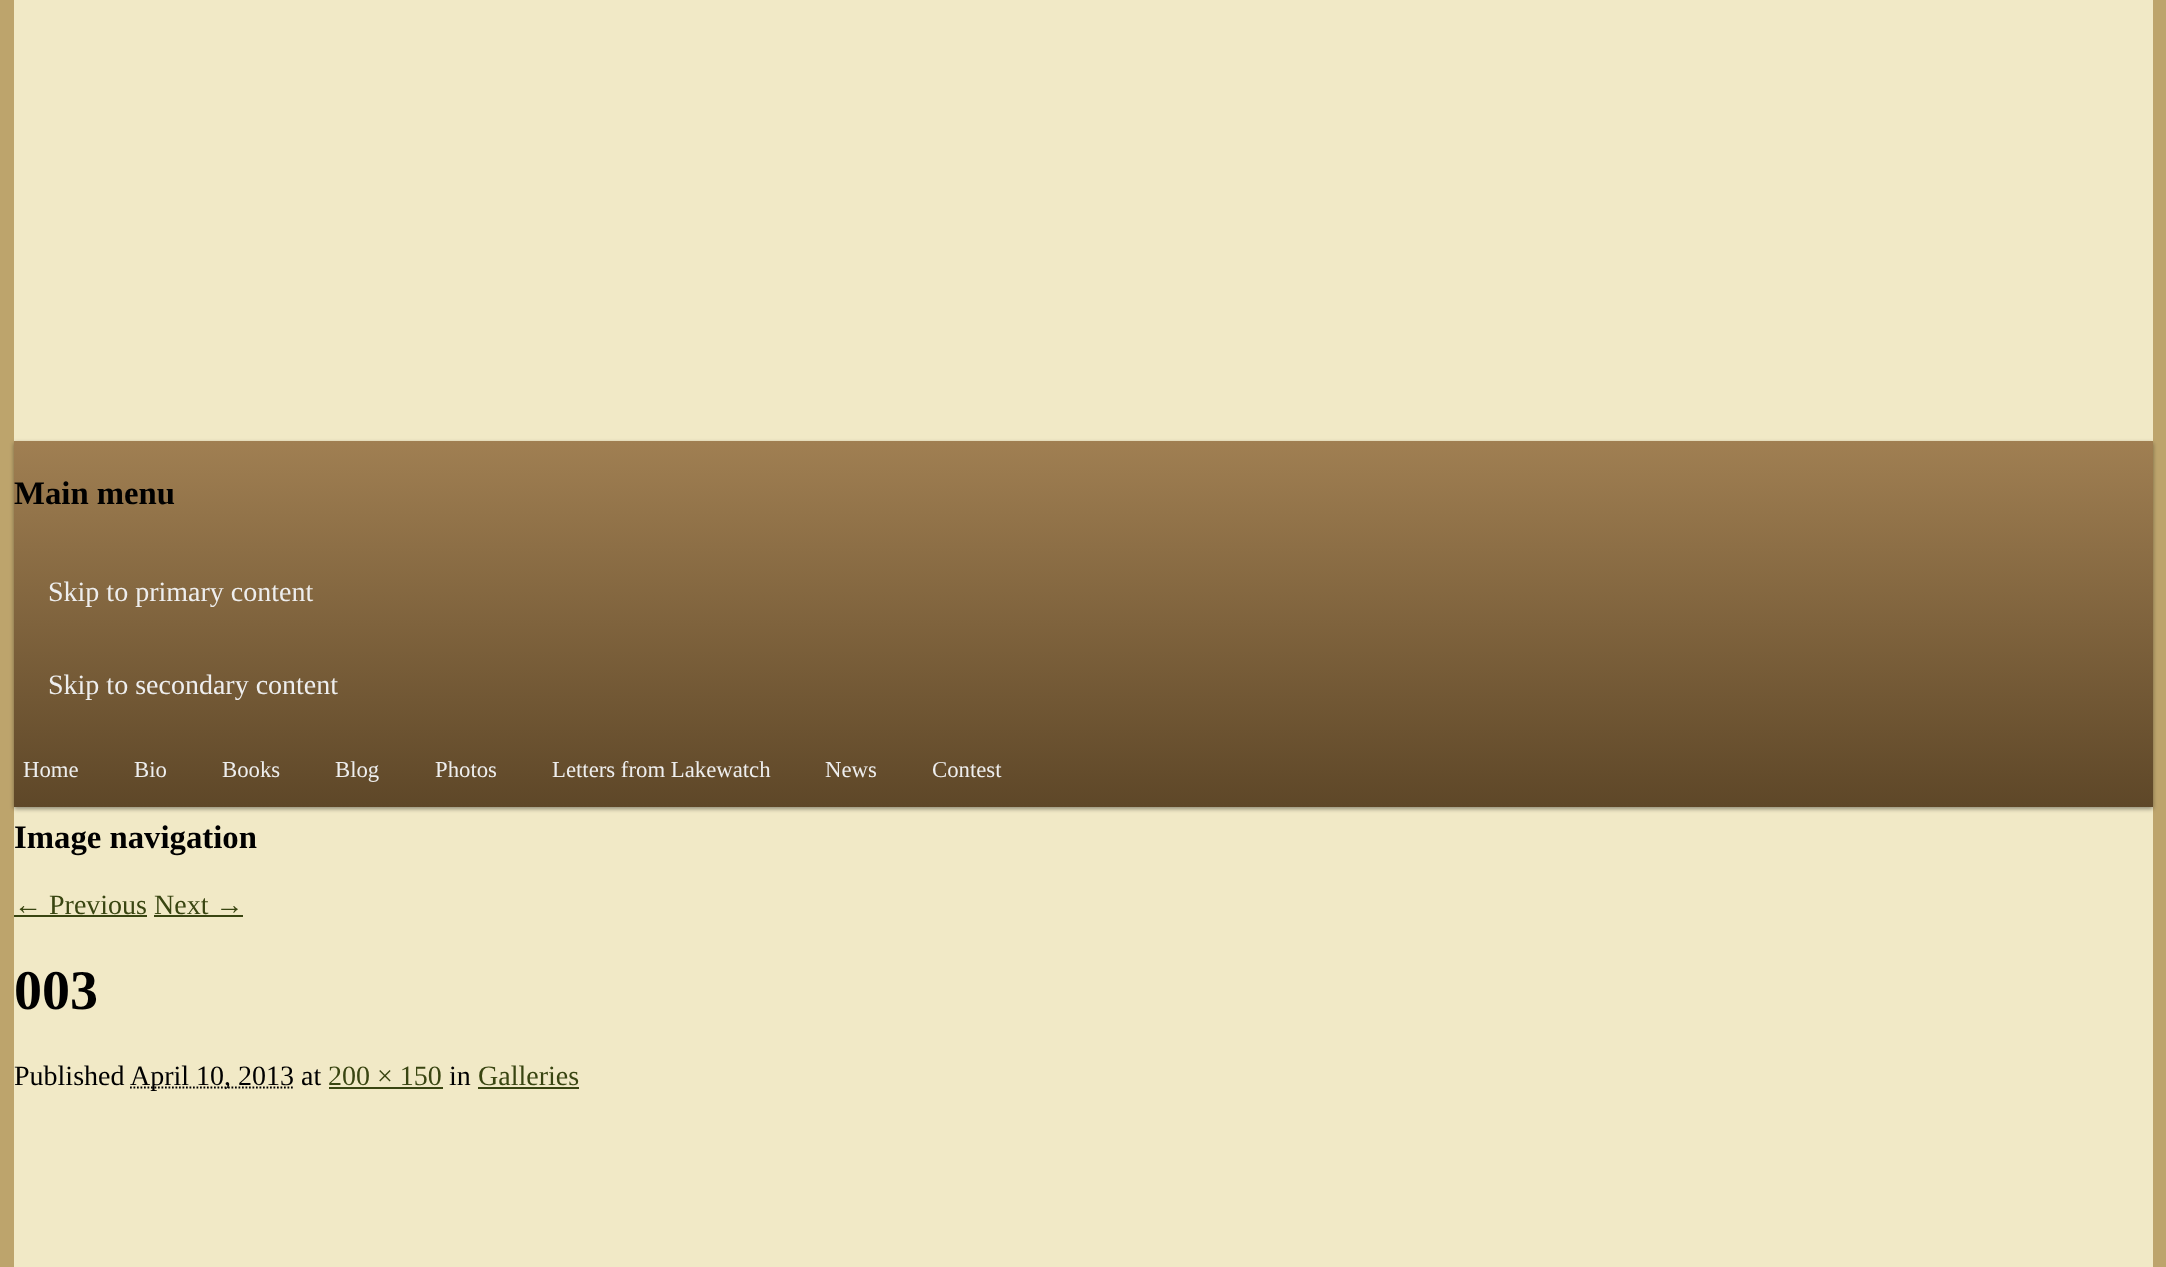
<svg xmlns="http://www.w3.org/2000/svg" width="2166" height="1267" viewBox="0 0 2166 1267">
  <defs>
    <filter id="blur1" x="-50%" y="-200%" width="200%" height="500%"><feGaussianBlur stdDeviation="2"/></filter>
    <linearGradient id="g1" gradientUnits="userSpaceOnUse" x1="1083" y1="441" x2="1083" y2="807"><stop offset="0" stop-color="#a07f52"/><stop offset="1" stop-color="#5e4728"/></linearGradient>
  </defs>
  <rect width="100%" height="100%" fill="#bda46c"/>
  <rect x="14" y="0" width="2139" height="1267" fill="#f1e9c6"/>
  <rect x="14" y="443" width="2139" height="366" fill="#000000" fill-opacity="0.4" filter="url(#blur1)"/>
  <rect x="14" y="441" width="2139" height="366" fill="url(#g1)"/>
  <text x="14" y="504" font-family="Liberation Serif" font-size="32.75" font-weight="bold" fill="#000000">Main menu</text>
  <text x="48" y="601" font-family="Liberation Serif" font-size="28" fill="#eeeeee">Skip to primary content</text>
  <text x="48" y="694" font-family="Liberation Serif" font-size="28" fill="#eeeeee">Skip to secondary content</text>
  <text x="23" y="777" font-family="Liberation Serif" font-size="22.75" fill="#eeeeee">Home</text>
  <text x="134" y="777" font-family="Liberation Serif" font-size="22.75" fill="#eeeeee">Bio</text>
  <text x="222" y="777" font-family="Liberation Serif" font-size="22.75" fill="#eeeeee">Books</text>
  <text x="335" y="777" font-family="Liberation Serif" font-size="22.75" fill="#eeeeee">Blog</text>
  <text x="435" y="777" font-family="Liberation Serif" font-size="22.75" fill="#eeeeee">Photos</text>
  <text x="552" y="777" font-family="Liberation Serif" font-size="22.75" fill="#eeeeee">Letters from Lakewatch</text>
  <text x="825" y="777" font-family="Liberation Serif" font-size="22.75" fill="#eeeeee">News</text>
  <text x="932" y="777" font-family="Liberation Serif" font-size="22.75" fill="#eeeeee">Contest</text>
  <text x="14" y="848" font-family="Liberation Serif" font-size="32.75" font-weight="bold" fill="#000000">Image navigation</text>
  <text x="14" y="914" font-family="Liberation Serif" font-size="28" fill="#394511">← Previous Next →</text>
  <rect x="14" y="915" width="133" height="2" fill="#394511"/>
  <rect x="154" y="915" width="89" height="2" fill="#394511"/>
  <text x="14" y="1009" font-family="Liberation Serif" font-size="56" font-weight="bold" fill="#000000">003</text>
  <text x="14" y="1085" font-family="Liberation Serif" font-size="28" fill="#000000">Published</text>
  <path d="M130 1087.5H294" fill="none" stroke="#000000" stroke-width="1.8" stroke-dasharray="1.75 1.75"/>
  <text x="130" y="1085" font-family="Liberation Serif" font-size="28" fill="#000000">April 10, 2013 at</text>
  <text x="328" y="1085" font-family="Liberation Serif" font-size="28" fill="#394511">200 × 150</text>
  <rect x="329" y="1087" width="114" height="2" fill="#394511"/>
  <text x="449" y="1085" font-family="Liberation Serif" font-size="28" fill="#000000">in</text>
  <text x="478" y="1085" font-family="Liberation Serif" font-size="28" fill="#394511">Galleries</text>
  <rect x="478" y="1087" width="101" height="2" fill="#394511"/>
</svg>
